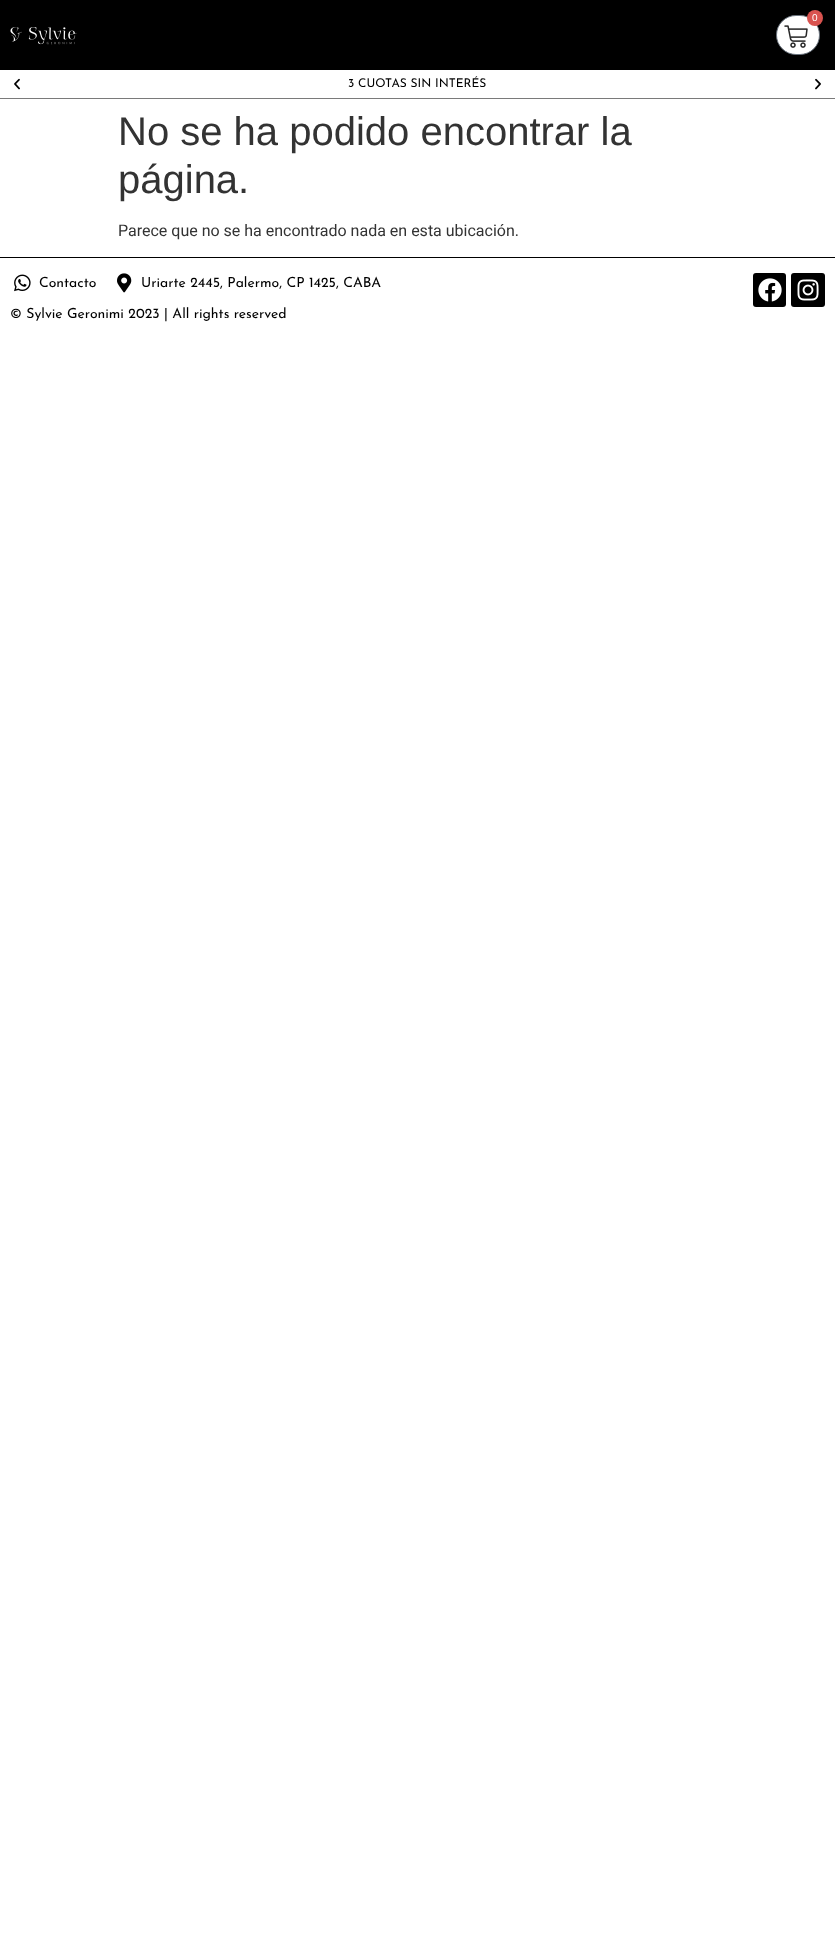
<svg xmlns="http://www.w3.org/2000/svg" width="835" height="1942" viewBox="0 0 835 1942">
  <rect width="100%" height="100%" fill="#ffffff"/>
  <rect x="0" y="0" width="835" height="70" fill="#000000"/>
  <rect x="776.5" y="15.5" width="43" height="39" rx="19.5" fill="#ffffff" stroke="#69727d"/>
  <image x="784" y="25" width="24" height="23" href="img1.png"/>
  <circle cx="815" cy="18" r="8" fill="#d9534f"/>
  <text x="812" y="21" font-family="Liberation Sans" font-size="10" fill="#ffffff">0</text>
  <image x="10" y="27" width="67" height="18" href="img2.png"/>
  <rect x="0" y="98" width="835" height="1" fill="#7a7a7a"/>
  <image x="14" y="78" width="6" height="12" href="img3.png"/>
  <text x="348" y="87" font-family="Josefin Sans" font-size="12" fill="#000000">3 CUOTAS SIN INTERÉS</text>
  <image x="815" y="78" width="6" height="12" href="img4.png"/>
  <text x="118" y="145" font-family="Liberation Sans" font-size="40" fill="#333333">No se ha podido encontrar la</text>
  <text x="118" y="193" font-family="Liberation Sans" font-size="40" fill="#333333">página.</text>
  <text x="118" y="236" font-family="Roboto" font-size="16" fill="#333333">Parece que no se ha encontrado nada en esta ubicación.</text>
  <rect x="0" y="257" width="835" height="1" fill="#000000"/>
  <image x="14" y="274" width="17" height="18" href="img5.png"/>
  <text x="39" y="287" font-family="Josefin Sans" font-size="14" fill="#000000">Contacto</text>
  <image x="117" y="273" width="15" height="20" href="img6.png"/>
  <text x="141" y="287" font-family="Josefin Sans" font-size="14" fill="#000000">Uriarte 2445, Palermo, CP 1425, CABA</text>
  <text x="10" y="318" font-family="Josefin Sans" font-size="14" fill="#000000">© Sylvie Geronimi 2023 | All rights reserved</text>
  <rect x="753" y="273" width="33" height="34" rx="3" fill="#000000"/>
  <image x="758" y="278" width="24" height="24" href="img7.png"/>
  <rect x="791" y="273" width="34" height="34" rx="3" fill="#000000"/>
  <image x="797" y="279" width="22" height="22" href="img8.png"/>
</svg>
